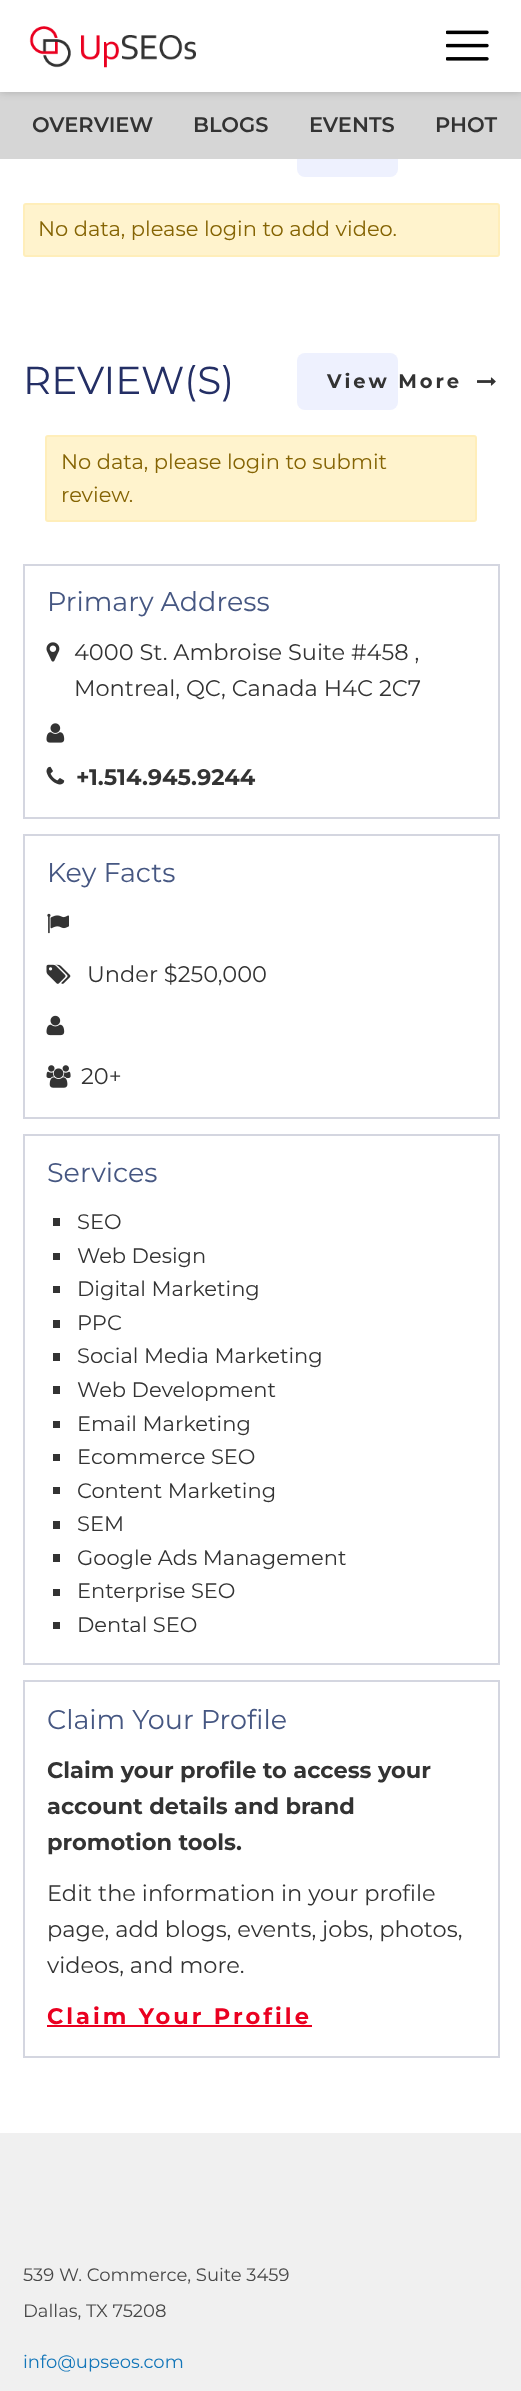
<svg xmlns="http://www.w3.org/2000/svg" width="521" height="2391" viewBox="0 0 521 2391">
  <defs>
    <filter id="blur1" x="-50%" y="-200%" width="200%" height="500%"><feGaussianBlur stdDeviation="4"/></filter>
  </defs>
  <rect width="100%" height="100%" fill="#ffffff"/>
  <rect x="297" y="120" width="101" height="57" rx="8" fill="#eef1fe"/>
  <rect x="0" y="92" width="521" height="67" fill="#d6d6d6"/>
  <rect x="0" y="0" width="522" height="92" fill="#000000" fill-opacity="0.2" filter="url(#blur1)"/>
  <rect x="0" y="0" width="521" height="92" fill="#ffffff"/>
  <image x="29" y="26" width="167" height="42" href="img1.png"/>
  <image x="446" y="30" width="43" height="31" href="img2.png"/>
  <text x="32" y="132" font-family="Montserrat" font-size="21" font-weight="600" fill="#333333">OVERVIEW</text>
  <text x="193" y="132" font-family="Montserrat" font-size="21" font-weight="600" fill="#333333">BLOGS</text>
  <text x="309" y="132" font-family="Montserrat" font-size="21" font-weight="600" fill="#333333">EVENTS</text>
  <text x="435" y="132" font-family="Montserrat" font-size="21" font-weight="600" fill="#333333">PHOT</text>
  <rect x="24" y="204" width="475" height="52" rx="2" fill="#fff3cd" stroke="#ffeeba" stroke-width="2"/>
  <text x="38" y="236" font-family="Montserrat" font-size="21" fill="#856404">No data, please login to add video.</text>
  <text x="23" y="394" font-family="Montserrat" font-size="39" fill="#242f65">REVIEW(S)</text>
  <rect x="297" y="353" width="101" height="57" rx="8" fill="#eef1fe"/>
  <text x="327" y="388" font-family="Montserrat" font-size="19.5" font-weight="bold" letter-spacing="3" fill="#333333">View More</text>
  <image x="477" y="377" width="19" height="9" href="img3.png"/>
  <rect x="46" y="436" width="430" height="85" rx="2" fill="#fff3cd" stroke="#ffeeba" stroke-width="2"/>
  <text x="61" y="469" font-family="Montserrat" font-size="21" fill="#856404">No data, please login to submit</text>
  <text x="61" y="502" font-family="Montserrat" font-size="21" fill="#856404">review.</text>
  <rect x="24" y="565" width="475" height="253" fill="none" stroke="#d4d6e0" stroke-width="2"/>
  <text x="47" y="611" font-family="Montserrat" font-size="27" fill="#465782">Primary Address</text>
  <image x="46" y="642" width="14" height="20" href="img4.png"/>
  <text x="74" y="660" font-family="Montserrat" font-size="22.5" fill="#333333">4000 St. Ambroise Suite #458 ,</text>
  <text x="74" y="696" font-family="Montserrat" font-size="22.5" fill="#333333">Montreal, QC, Canada H4C 2C7</text>
  <image x="46" y="723" width="19" height="20" href="img5.png"/>
  <image x="46" y="766" width="19" height="19" href="img6.png"/>
  <text x="76" y="785" font-family="Montserrat" font-size="22.5" font-weight="bold" fill="#333333">+1.514.945.9244</text>
  <rect x="24" y="835" width="475" height="283" fill="none" stroke="#d4d6e0" stroke-width="2"/>
  <text x="47" y="882" font-family="Montserrat" font-size="27" fill="#465782">Key Facts</text>
  <image x="47" y="913" width="22" height="21" href="img7.png"/>
  <image x="46" y="964" width="25" height="20" href="img8.png"/>
  <text x="87" y="982" font-family="Montserrat" font-size="22.5" fill="#333333">Under $250,000</text>
  <image x="46" y="1015" width="19" height="21" href="img9.png"/>
  <image x="46" y="1065" width="25" height="23" href="img10.png"/>
  <text x="81" y="1084" font-family="Montserrat" font-size="22.5" fill="#333333">20+</text>
  <rect x="24" y="1135" width="475" height="529" fill="none" stroke="#d4d6e0" stroke-width="2"/>
  <text x="47" y="1182" font-family="Montserrat" font-size="27" fill="#465782">Services</text>
  <rect x="53" y="1218" width="7" height="8" fill="#333333"/>
  <text x="77" y="1229" font-family="Montserrat" font-size="21" fill="#333333">SEO</text>
  <rect x="53" y="1253" width="7" height="7" fill="#333333"/>
  <text x="77" y="1263" font-family="Montserrat" font-size="21" fill="#333333">Web Design</text>
  <rect x="53" y="1286" width="7" height="7" fill="#333333"/>
  <text x="77" y="1296" font-family="Montserrat" font-size="21" fill="#333333">Digital Marketing</text>
  <rect x="53" y="1320" width="7" height="8" fill="#333333"/>
  <text x="77" y="1330" font-family="Montserrat" font-size="21" fill="#333333">PPC</text>
  <rect x="53" y="1353" width="7" height="8" fill="#333333"/>
  <text x="77" y="1363" font-family="Montserrat" font-size="21" fill="#333333">Social Media Marketing</text>
  <rect x="53" y="1386" width="7" height="8" fill="#333333"/>
  <text x="77" y="1397" font-family="Montserrat" font-size="21" fill="#333333">Web Development</text>
  <rect x="53" y="1421" width="7" height="7" fill="#333333"/>
  <text x="77" y="1431" font-family="Montserrat" font-size="21" fill="#333333">Email Marketing</text>
  <rect x="53" y="1454" width="7" height="7" fill="#333333"/>
  <text x="77" y="1464" font-family="Montserrat" font-size="21" fill="#333333">Ecommerce SEO</text>
  <rect x="53" y="1487" width="7" height="7" fill="#333333"/>
  <text x="77" y="1498" font-family="Montserrat" font-size="21" fill="#333333">Content Marketing</text>
  <rect x="53" y="1521" width="7" height="8" fill="#333333"/>
  <text x="77" y="1531" font-family="Montserrat" font-size="21" fill="#333333">SEM</text>
  <rect x="53" y="1554" width="7" height="8" fill="#333333"/>
  <text x="77" y="1565" font-family="Montserrat" font-size="21" fill="#333333">Google Ads Management</text>
  <rect x="53" y="1589" width="7" height="7" fill="#333333"/>
  <text x="77" y="1598" font-family="Montserrat" font-size="21" fill="#333333">Enterprise SEO</text>
  <rect x="53" y="1622" width="7" height="7" fill="#333333"/>
  <text x="77" y="1632" font-family="Montserrat" font-size="21" fill="#333333">Dental SEO</text>
  <rect x="24" y="1681" width="475" height="376" fill="none" stroke="#d4d6e0" stroke-width="2"/>
  <text x="47" y="1729" font-family="Montserrat" font-size="27" fill="#465782">Claim Your Profile</text>
  <text x="47" y="1778" font-family="Montserrat" font-size="22.5" font-weight="bold" fill="#333333">Claim your profile to access your</text>
  <text x="47" y="1814" font-family="Montserrat" font-size="22.5" font-weight="bold" fill="#333333">account details and brand</text>
  <text x="47" y="1850" font-family="Montserrat" font-size="22.5" font-weight="bold" fill="#333333">promotion tools.</text>
  <text x="47" y="1901" font-family="Montserrat" font-size="22.5" fill="#333333">Edit the information in your profile</text>
  <text x="47" y="1937" font-family="Montserrat" font-size="22.5" fill="#333333">page, add blogs, events, jobs, photos,</text>
  <text x="47" y="1973" font-family="Montserrat" font-size="22.5" fill="#333333">videos, and more.</text>
  <text x="47" y="2024" font-family="Montserrat" font-size="22.5" font-weight="bold" letter-spacing="3" fill="#ea0020">Claim Your Profile</text>
  <rect x="47" y="2025" width="265" height="2" fill="#ea0020"/>
  <rect x="0" y="2133" width="521" height="258" fill="#f0f0f0"/>
  <text x="23" y="2281" font-family="Montserrat" font-size="18" fill="#484848">539 W. Commerce, Suite 3459</text>
  <text x="23" y="2317" font-family="Montserrat" font-size="18" fill="#484848">Dallas, TX 75208</text>
  <text x="23" y="2368" font-family="Montserrat" font-size="18" fill="#1376b9">info@upseos.com</text>
</svg>
